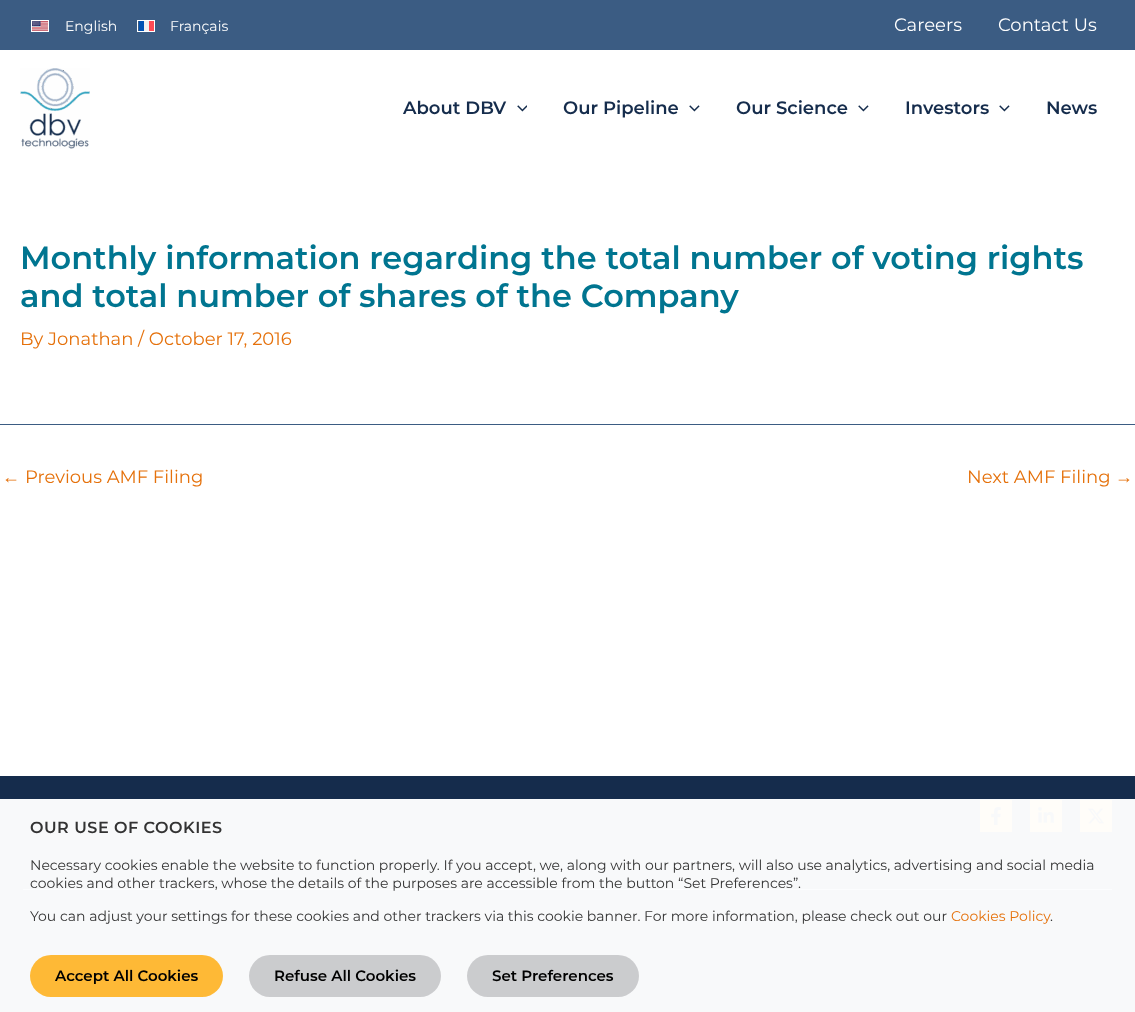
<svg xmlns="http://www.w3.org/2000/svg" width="1135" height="1012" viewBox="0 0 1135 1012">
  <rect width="100%" height="100%" fill="#ffffff"/>
  <rect x="0" y="0" width="1135" height="50" fill="#3b5c83"/>
  <rect x="31.5" y="20.5" width="17" height="11" fill="none" stroke="#ffffff"/>
  <text x="65" y="31" font-family="Montserrat" font-size="14" fill="#ffffff">English</text>
  <image x="32" y="21" width="16" height="10" href="img1.png"/>
  <rect x="137.5" y="20.5" width="17" height="11" fill="none" stroke="#ffffff"/>
  <text x="170" y="31" font-family="Montserrat" font-size="14" fill="#ffffff">Français</text>
  <rect x="139" y="21" width="5" height="10" fill="#0052b4"/>
  <rect x="144" y="21" width="5" height="10" fill="#f0f0f0"/>
  <rect x="149" y="21" width="5" height="10" fill="#ff4b55"/>
  <text x="894" y="31" font-family="Montserrat" font-size="18" fill="#ffffff">Careers</text>
  <text x="998" y="31" font-family="Montserrat" font-size="18" fill="#ffffff">Contact Us</text>
  <image x="20" y="68" width="70" height="81" href="img2.png"/>
  <text x="403" y="114" font-family="Montserrat" font-size="18" font-weight="600" fill="#152c4c">About DBV</text>
  <image x="517" y="105" width="10" height="7" href="img3.png"/>
  <text x="563" y="114" font-family="Montserrat" font-size="18" font-weight="600" fill="#152c4c">Our Pipeline</text>
  <image x="689" y="105" width="11" height="7" href="img4.png"/>
  <text x="736" y="114" font-family="Montserrat" font-size="18" font-weight="600" fill="#152c4c">Our Science</text>
  <image x="858" y="105" width="11" height="7" href="img4.png"/>
  <text x="905" y="114" font-family="Montserrat" font-size="18" font-weight="600" fill="#152c4c">Investors</text>
  <image x="999" y="105" width="11" height="7" href="img4.png"/>
  <text x="1046" y="114" font-family="Montserrat" font-size="18" font-weight="600" fill="#152c4c">News</text>
  <text x="20" y="269" font-family="Montserrat" font-size="32" font-weight="600" fill="#007590">Monthly information regarding the total number of voting rights</text>
  <text x="20" y="307" font-family="Montserrat" font-size="32" font-weight="600" fill="#007590">and total number of shares of the Company</text>
  <text x="20" y="345" font-family="Montserrat" font-size="18" fill="#e5710b">By Jonathan / October 17, 2016</text>
  <rect x="0" y="424" width="1135" height="1" fill="#3b5c83"/>
  <text x="2" y="483" font-family="Liberation Sans" font-size="18" fill="#e5710b">←</text>
  <text x="25" y="483" font-family="Montserrat" font-size="18" fill="#e5710b">Previous AMF Filing</text>
  <text x="967" y="483" font-family="Montserrat" font-size="18" fill="#e5710b">Next AMF Filing</text>
  <text x="1115" y="483" font-family="Liberation Sans" font-size="18" fill="#e5710b">→</text>
  <rect x="0" y="776" width="1135" height="23" fill="#152c4c"/>
  <rect x="0" y="799" width="1135" height="213" fill="#f8f9fa"/>
  <rect x="980" y="800" width="32" height="32" fill="#fffdf9"/>
  <image x="991" y="807" width="10" height="18" href="img5.png"/>
  <rect x="1030" y="800" width="32" height="32" fill="#fffdf9"/>
  <image x="1038" y="807" width="16" height="16" href="img6.png"/>
  <rect x="1080" y="800" width="32" height="32" fill="#fffdf9"/>
  <image x="1088" y="808" width="16" height="16" href="img7.png"/>
  <rect x="23" y="889" width="1089" height="1" fill="#fcfdfe"/>
  <text x="30" y="833" font-family="Montserrat" font-size="16" font-weight="600" letter-spacing="0.5" fill="#333333">OUR USE OF COOKIES</text>
  <text x="30" y="870" font-family="Montserrat" font-size="14" fill="#333333">Necessary cookies enable the website to function properly. If you accept, we, along with our partners, will also use analytics, advertising and social media</text>
  <text x="30" y="888" font-family="Montserrat" font-size="14" fill="#333333">cookies and other trackers, whose the details of the purposes are accessible from the button “Set Preferences”.</text>
  <text x="30" y="921" font-family="Montserrat" font-size="14" fill="#333333">You can adjust your settings for these cookies and other trackers via this cookie banner. For more information, please check out our</text>
  <text x="951" y="921" font-family="Montserrat" font-size="14" fill="#e5710b">Cookies Policy</text>
  <text x="1050" y="921" font-family="Montserrat" font-size="14" fill="#333333">.</text>
  <rect x="30" y="955" width="193" height="42" rx="21" fill="#feb936"/>
  <text x="55" y="981" font-family="Montserrat" font-size="15" font-weight="600" fill="#000000">Accept All Cookies</text>
  <rect x="249" y="955" width="192" height="42" rx="21" fill="#cbccce"/>
  <text x="274" y="981" font-family="Montserrat" font-size="15" font-weight="600" fill="#000000">Refuse All Cookies</text>
  <rect x="467" y="955" width="172" height="42" rx="21" fill="#cbccce"/>
  <text x="492" y="981" font-family="Montserrat" font-size="15" font-weight="600" fill="#000000">Set Preferences</text>
</svg>
